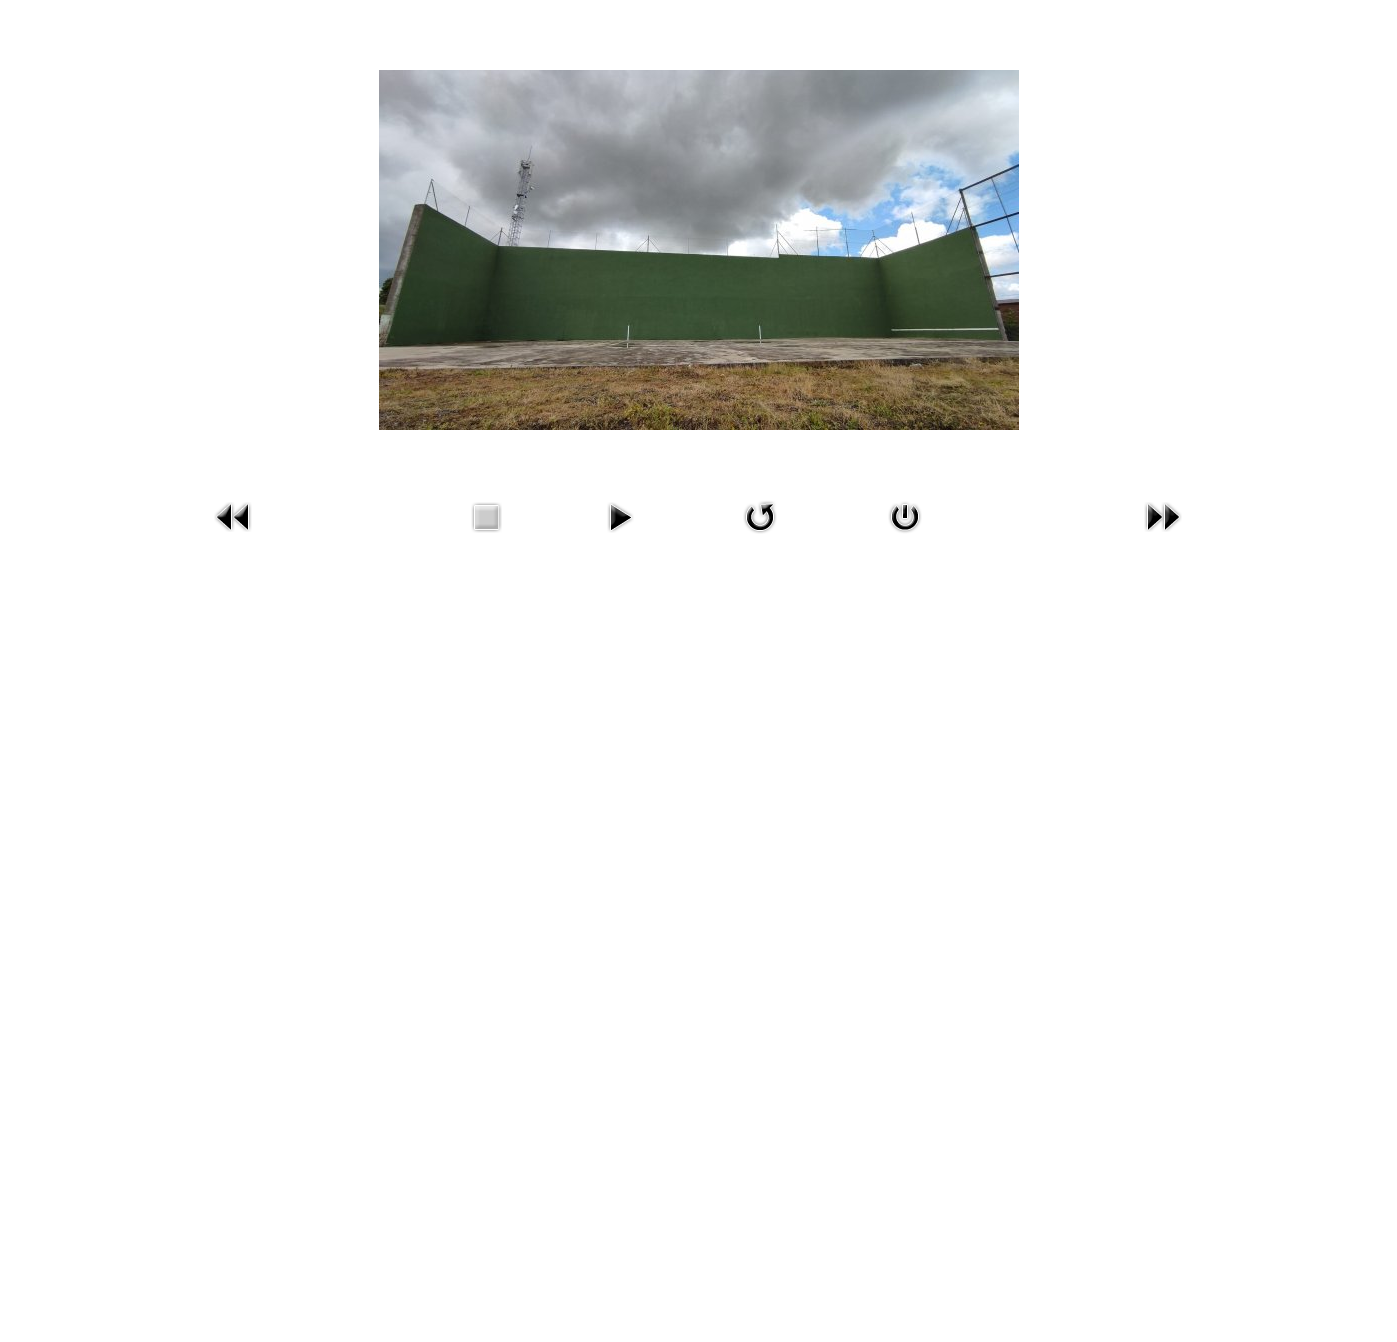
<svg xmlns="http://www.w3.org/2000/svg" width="1397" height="1342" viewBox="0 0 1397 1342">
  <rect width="100%" height="100%" fill="#ffffff"/>
  <image x="379" y="70" width="640" height="360" href="img1.png"/>
  <image x="214" y="502" width="38" height="30" href="img2.png"/>
  <image x="471" y="502" width="31" height="31" href="img3.png"/>
  <image x="607" y="502" width="27" height="31" href="img4.png"/>
  <image x="743" y="500" width="34" height="34" href="img5.png"/>
  <image x="888" y="501" width="34" height="33" href="img6.png"/>
  <image x="1144" y="502" width="38" height="30" href="img7.png"/>
</svg>
